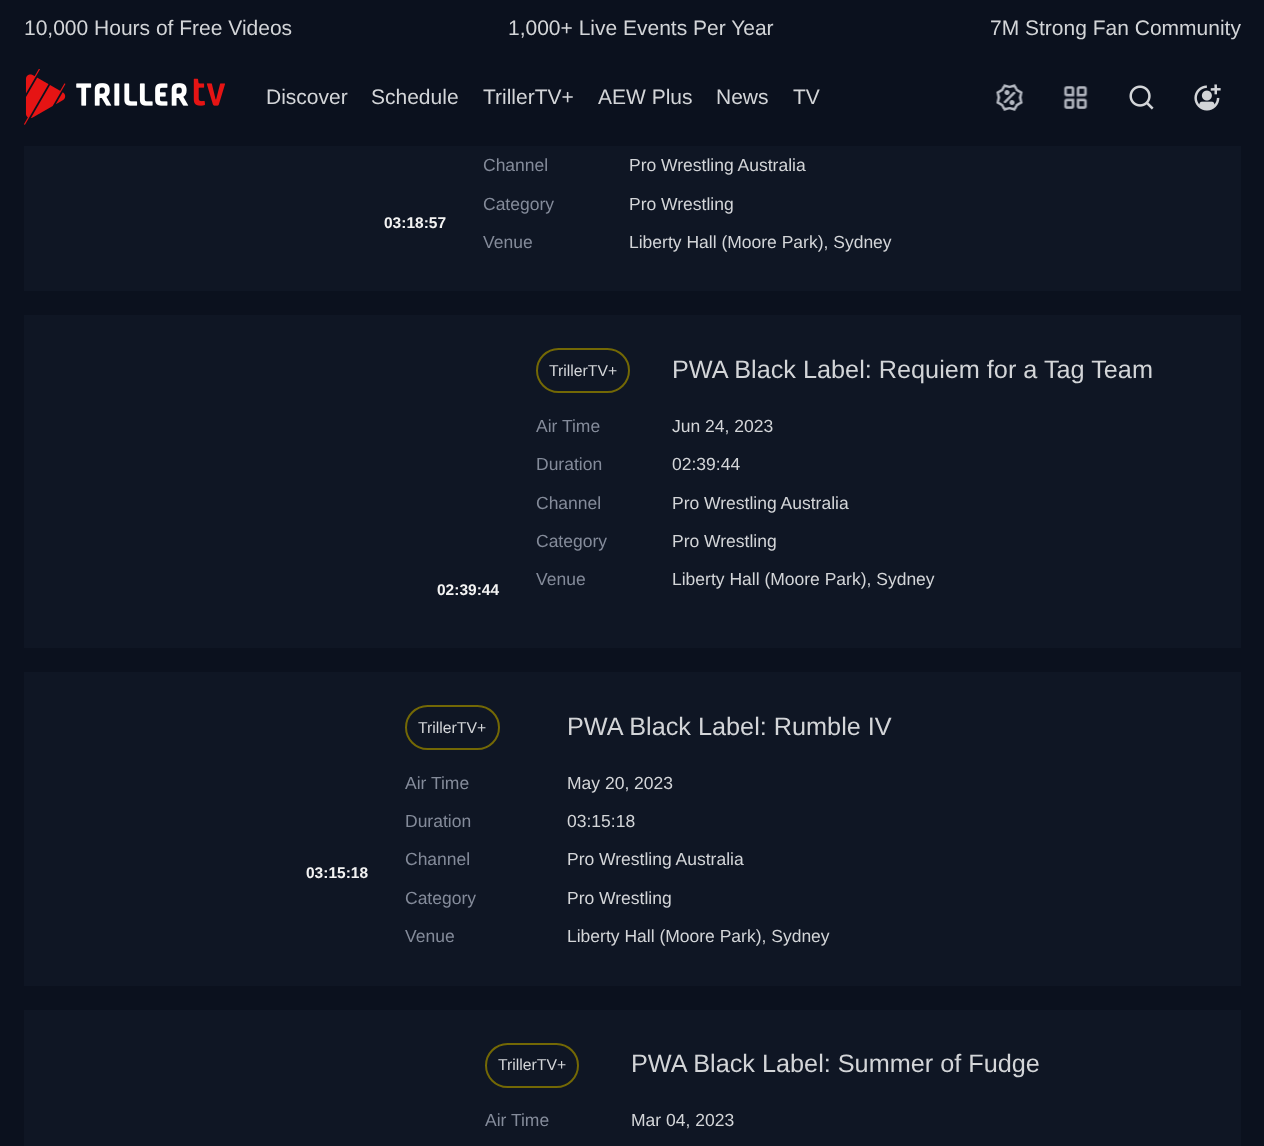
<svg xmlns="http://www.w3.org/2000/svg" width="1264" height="1146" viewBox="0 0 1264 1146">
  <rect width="100%" height="100%" fill="#0b111e"/>
  <text x="24" y="35" font-family="Liberation Sans" font-size="21" fill="#d3d5d8">10,000 Hours of Free Videos</text>
  <text x="508" y="35" font-family="Liberation Sans" font-size="21" fill="#d3d5d8">1,000+ Live Events Per Year</text>
  <text x="990" y="35" font-family="Liberation Sans" font-size="21" fill="#d3d5d8">7M Strong Fan Community</text>
  <image x="24" y="69" width="201" height="56" href="img1.png"/>
  <text x="266" y="104" font-family="Liberation Sans" font-size="21" fill="#d3d5d8">Discover</text>
  <text x="371" y="104" font-family="Liberation Sans" font-size="21" fill="#d3d5d8">Schedule</text>
  <text x="483" y="104" font-family="Liberation Sans" font-size="21" fill="#d3d5d8">TrillerTV+</text>
  <text x="598" y="104" font-family="Liberation Sans" font-size="21" fill="#d3d5d8">AEW Plus</text>
  <text x="716" y="104" font-family="Liberation Sans" font-size="21" fill="#d3d5d8">News</text>
  <text x="793" y="104" font-family="Liberation Sans" font-size="21" fill="#d3d5d8">TV</text>
  <image x="995" y="84" width="29" height="27" href="img2.png"/>
  <image x="1063" y="86" width="25" height="23" href="img3.png"/>
  <image x="1129" y="85" width="25" height="25" href="img4.png"/>
  <image x="1194" y="84" width="27" height="27" href="img5.png"/>
  <rect x="24" y="146" width="1217" height="145" fill="#0f1624"/>
  <text x="384" y="228" font-family="Liberation Sans" font-size="15.5" font-weight="bold" fill="#f3f3f3">03:18:57</text>
  <text x="483" y="171" font-family="Liberation Sans" font-size="17.5" fill="#848b9a">Channel</text>
  <text x="629" y="171" font-family="Liberation Sans" font-size="17.5" fill="#d3d5d8">Pro Wrestling Australia</text>
  <text x="483" y="210" font-family="Liberation Sans" font-size="17.5" fill="#848b9a">Category</text>
  <text x="629" y="210" font-family="Liberation Sans" font-size="17.5" fill="#d3d5d8">Pro Wrestling</text>
  <text x="483" y="248" font-family="Liberation Sans" font-size="17.5" fill="#848b9a">Venue</text>
  <text x="629" y="248" font-family="Liberation Sans" font-size="17.5" fill="#d3d5d8">Liberty Hall (Moore Park), Sydney</text>
  <rect x="24" y="315" width="1217" height="333" fill="#0f1624"/>
  <text x="437" y="595" font-family="Liberation Sans" font-size="15.5" font-weight="bold" fill="#f3f3f3">02:39:44</text>
  <rect x="537" y="349" width="92" height="43" rx="21.5" fill="none" stroke="#736805" stroke-width="2"/>
  <text x="549" y="376" font-family="Liberation Sans" font-size="15.75" fill="#d3d5d8">TrillerTV+</text>
  <text x="672" y="378" font-family="Liberation Sans" font-size="25.25" fill="#d3d5d8">PWA Black Label: Requiem for a Tag Team</text>
  <text x="536" y="432" font-family="Liberation Sans" font-size="17.5" fill="#848b9a">Air Time</text>
  <text x="672" y="432" font-family="Liberation Sans" font-size="17.5" fill="#d3d5d8">Jun 24, 2023</text>
  <text x="536" y="470" font-family="Liberation Sans" font-size="17.5" fill="#848b9a">Duration</text>
  <text x="672" y="470" font-family="Liberation Sans" font-size="17.5" fill="#d3d5d8">02:39:44</text>
  <text x="536" y="509" font-family="Liberation Sans" font-size="17.5" fill="#848b9a">Channel</text>
  <text x="672" y="509" font-family="Liberation Sans" font-size="17.5" fill="#d3d5d8">Pro Wrestling Australia</text>
  <text x="536" y="547" font-family="Liberation Sans" font-size="17.5" fill="#848b9a">Category</text>
  <text x="672" y="547" font-family="Liberation Sans" font-size="17.5" fill="#d3d5d8">Pro Wrestling</text>
  <text x="536" y="585" font-family="Liberation Sans" font-size="17.5" fill="#848b9a">Venue</text>
  <text x="672" y="585" font-family="Liberation Sans" font-size="17.5" fill="#d3d5d8">Liberty Hall (Moore Park), Sydney</text>
  <rect x="24" y="672" width="1217" height="314" fill="#0f1624"/>
  <text x="306" y="878" font-family="Liberation Sans" font-size="15.5" font-weight="bold" fill="#f3f3f3">03:15:18</text>
  <rect x="406" y="706" width="93" height="43" rx="21.5" fill="none" stroke="#736805" stroke-width="2"/>
  <text x="418" y="733" font-family="Liberation Sans" font-size="15.75" fill="#d3d5d8">TrillerTV+</text>
  <text x="567" y="735" font-family="Liberation Sans" font-size="25.25" fill="#d3d5d8">PWA Black Label: Rumble IV</text>
  <text x="405" y="789" font-family="Liberation Sans" font-size="17.5" fill="#848b9a">Air Time</text>
  <text x="567" y="789" font-family="Liberation Sans" font-size="17.5" fill="#d3d5d8">May 20, 2023</text>
  <text x="405" y="827" font-family="Liberation Sans" font-size="17.5" fill="#848b9a">Duration</text>
  <text x="567" y="827" font-family="Liberation Sans" font-size="17.5" fill="#d3d5d8">03:15:18</text>
  <text x="405" y="865" font-family="Liberation Sans" font-size="17.5" fill="#848b9a">Channel</text>
  <text x="567" y="865" font-family="Liberation Sans" font-size="17.5" fill="#d3d5d8">Pro Wrestling Australia</text>
  <text x="405" y="904" font-family="Liberation Sans" font-size="17.5" fill="#848b9a">Category</text>
  <text x="567" y="904" font-family="Liberation Sans" font-size="17.5" fill="#d3d5d8">Pro Wrestling</text>
  <text x="405" y="942" font-family="Liberation Sans" font-size="17.5" fill="#848b9a">Venue</text>
  <text x="567" y="942" font-family="Liberation Sans" font-size="17.5" fill="#d3d5d8">Liberty Hall (Moore Park), Sydney</text>
  <rect x="24" y="1010" width="1217" height="136" fill="#0f1624"/>
  <rect x="486" y="1044" width="92" height="43" rx="21.5" fill="none" stroke="#736805" stroke-width="2"/>
  <text x="498" y="1070" font-family="Liberation Sans" font-size="15.75" fill="#d3d5d8">TrillerTV+</text>
  <text x="631" y="1072" font-family="Liberation Sans" font-size="25.25" fill="#d3d5d8">PWA Black Label: Summer of Fudge</text>
  <text x="485" y="1126" font-family="Liberation Sans" font-size="17.5" fill="#848b9a">Air Time</text>
  <text x="631" y="1126" font-family="Liberation Sans" font-size="17.5" fill="#d3d5d8">Mar 04, 2023</text>
</svg>
